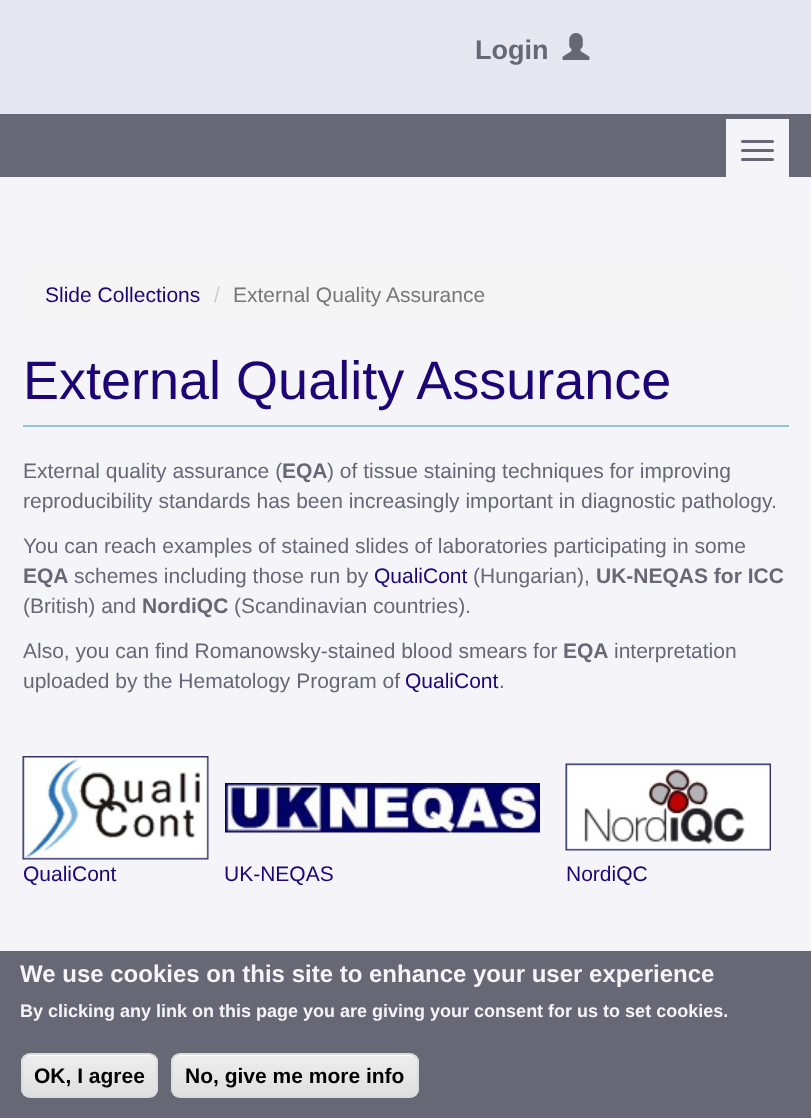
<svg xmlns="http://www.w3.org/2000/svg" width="811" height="1118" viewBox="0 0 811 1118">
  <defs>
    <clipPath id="clip1"><rect x="21" y="1053" width="137" height="45" rx="9"/></clipPath>
    <linearGradient id="g1" gradientUnits="userSpaceOnUse" x1="89" y1="1055" x2="89" y2="1097"><stop offset="0.05" stop-color="#ededed"/><stop offset="1" stop-color="#dfdfdf"/></linearGradient>
    <clipPath id="clip2"><rect x="171" y="1053" width="248" height="45" rx="9"/></clipPath>
    <linearGradient id="g2" gradientUnits="userSpaceOnUse" x1="295" y1="1055" x2="295" y2="1097"><stop offset="0.05" stop-color="#ededed"/><stop offset="1" stop-color="#dfdfdf"/></linearGradient>
  </defs>
  <rect width="100%" height="100%" fill="#f4f4f9"/>
  <rect x="0" y="0" width="811" height="114" fill="#e7e7f2"/>
  <text x="475" y="59" font-family="Liberation Sans" font-size="27" font-weight="bold" fill="#676776">Login</text>
  <image x="562" y="33" width="28" height="27" href="img1.png"/>
  <rect x="0" y="114" width="811" height="63" fill="#676776"/>
  <rect x="726" y="119" width="63" height="58" fill="#f4f4f9"/>
  <rect x="741" y="140" width="33" height="3" rx="1.5" fill="#676776"/>
  <rect x="741" y="149" width="33" height="3" rx="1.5" fill="#676776"/>
  <rect x="741" y="158" width="33" height="3" rx="1.5" fill="#676776"/>
  <rect x="23" y="267" width="766" height="54" rx="6" fill="#f5f5f5"/>
  <text x="45" y="302" font-family="Liberation Sans" font-size="21" fill="#1e0576">Slide Collections</text>
  <text x="214" y="302" font-family="Liberation Sans" font-size="21" fill="#cccccc">/</text>
  <text x="233" y="302" font-family="Liberation Sans" font-size="21" fill="#777777">External Quality Assurance</text>
  <rect x="23" y="425" width="766" height="2" fill="#93c4d5"/>
  <text x="23" y="399" font-family="Liberation Sans" font-size="54" fill="#1e0576">External Quality Assurance</text>
  <text x="23" y="478" font-family="Liberation Sans" font-size="21" fill="#676776">External quality assurance (</text>
  <text x="282" y="478" font-family="Liberation Sans" font-size="21" font-weight="bold" fill="#676776">EQA</text>
  <text x="327" y="478" font-family="Liberation Sans" font-size="21" fill="#676776">) of tissue staining techniques for improving</text>
  <text x="23" y="508" font-family="Liberation Sans" font-size="21" fill="#676776">reproducibility standards has been increasingly important in diagnostic pathology.</text>
  <text x="23" y="553" font-family="Liberation Sans" font-size="21" fill="#676776">You can reach examples of stained slides of laboratories participating in some</text>
  <text x="23" y="583" font-family="Liberation Sans" font-size="21" font-weight="bold" fill="#676776">EQA</text>
  <text x="74" y="583" font-family="Liberation Sans" font-size="21" fill="#676776">schemes including those run by</text>
  <text x="374" y="583" font-family="Liberation Sans" font-size="21" fill="#1e0576">QualiCont</text>
  <text x="473" y="583" font-family="Liberation Sans" font-size="21" fill="#676776">(Hungarian),</text>
  <text x="596" y="583" font-family="Liberation Sans" font-size="21" font-weight="bold" fill="#676776">UK-NEQAS for ICC</text>
  <text x="23" y="613" font-family="Liberation Sans" font-size="21" fill="#676776">(British) and</text>
  <text x="142" y="613" font-family="Liberation Sans" font-size="21" font-weight="bold" fill="#676776">NordiQC</text>
  <text x="234" y="613" font-family="Liberation Sans" font-size="21" fill="#676776">(Scandinavian countries).</text>
  <text x="23" y="658" font-family="Liberation Sans" font-size="21" fill="#676776">Also, you can find Romanowsky-stained blood smears for</text>
  <text x="563" y="658" font-family="Liberation Sans" font-size="21" font-weight="bold" fill="#676776">EQA</text>
  <text x="614" y="658" font-family="Liberation Sans" font-size="21" fill="#676776">interpretation</text>
  <text x="23" y="688" font-family="Liberation Sans" font-size="21" fill="#676776">uploaded by the Hematology Program of</text>
  <text x="405" y="688" font-family="Liberation Sans" font-size="21" fill="#1e0576">QualiCont</text>
  <text x="499" y="688" font-family="Liberation Sans" font-size="21" fill="#676776">.</text>
  <image x="22" y="756" width="187" height="104" href="img2.png"/>
  <image x="225" y="783" width="315" height="50" href="img3.png"/>
  <image x="565" y="763" width="206" height="88" href="img4.png"/>
  <text x="23" y="881" font-family="Liberation Sans" font-size="21" fill="#1e0576">QualiCont</text>
  <text x="224" y="881" font-family="Liberation Sans" font-size="21" fill="#1e0576">UK-NEQAS</text>
  <text x="566" y="881" font-family="Liberation Sans" font-size="21" fill="#1e0576">NordiQC</text>
  <rect x="0" y="951" width="811" height="167" fill="#676776"/>
  <text x="20" y="982" font-family="Liberation Sans" font-size="24" font-weight="bold" fill="#f4f4f9">We use cookies on this site to enhance your user experience</text>
  <text x="20" y="1017" font-family="Liberation Sans" font-size="18" font-weight="bold" fill="#f4f4f9">By clicking any link on this page you are giving your consent for us to set cookies.</text>
  <g clip-path="url(#clip1)">
    <rect x="21" y="1055" width="137" height="42" fill="url(#g1)"/>
  </g>
  <path d="M30 1056H148C153 1056 156 1059 156 1064V1063C156 1059 152 1055 148 1055H31C29 1055 26 1056 25 1058C26 1057 28 1056 30 1056Z" fill="#ffffff"/>
  <rect x="22" y="1054" width="135" height="43" rx="8" fill="none" stroke="#dcdcdc" stroke-width="2"/>
  <text x="34" y="1083" font-family="Liberation Sans" font-size="21" font-weight="bold" fill="#000000">OK, I agree</text>
  <g clip-path="url(#clip2)">
    <rect x="171" y="1055" width="248" height="42" fill="url(#g2)"/>
  </g>
  <path d="M180 1056H410C414 1056 417 1059 417 1064V1063C417 1059 413 1055 409 1055H181C179 1055 176 1056 175 1058C176 1057 178 1056 180 1056Z" fill="#ffffff"/>
  <rect x="172" y="1054" width="246" height="43" rx="8" fill="none" stroke="#dcdcdc" stroke-width="2"/>
  <text x="185" y="1083" font-family="Liberation Sans" font-size="21" font-weight="bold" fill="#000000">No, give me more info</text>
</svg>
